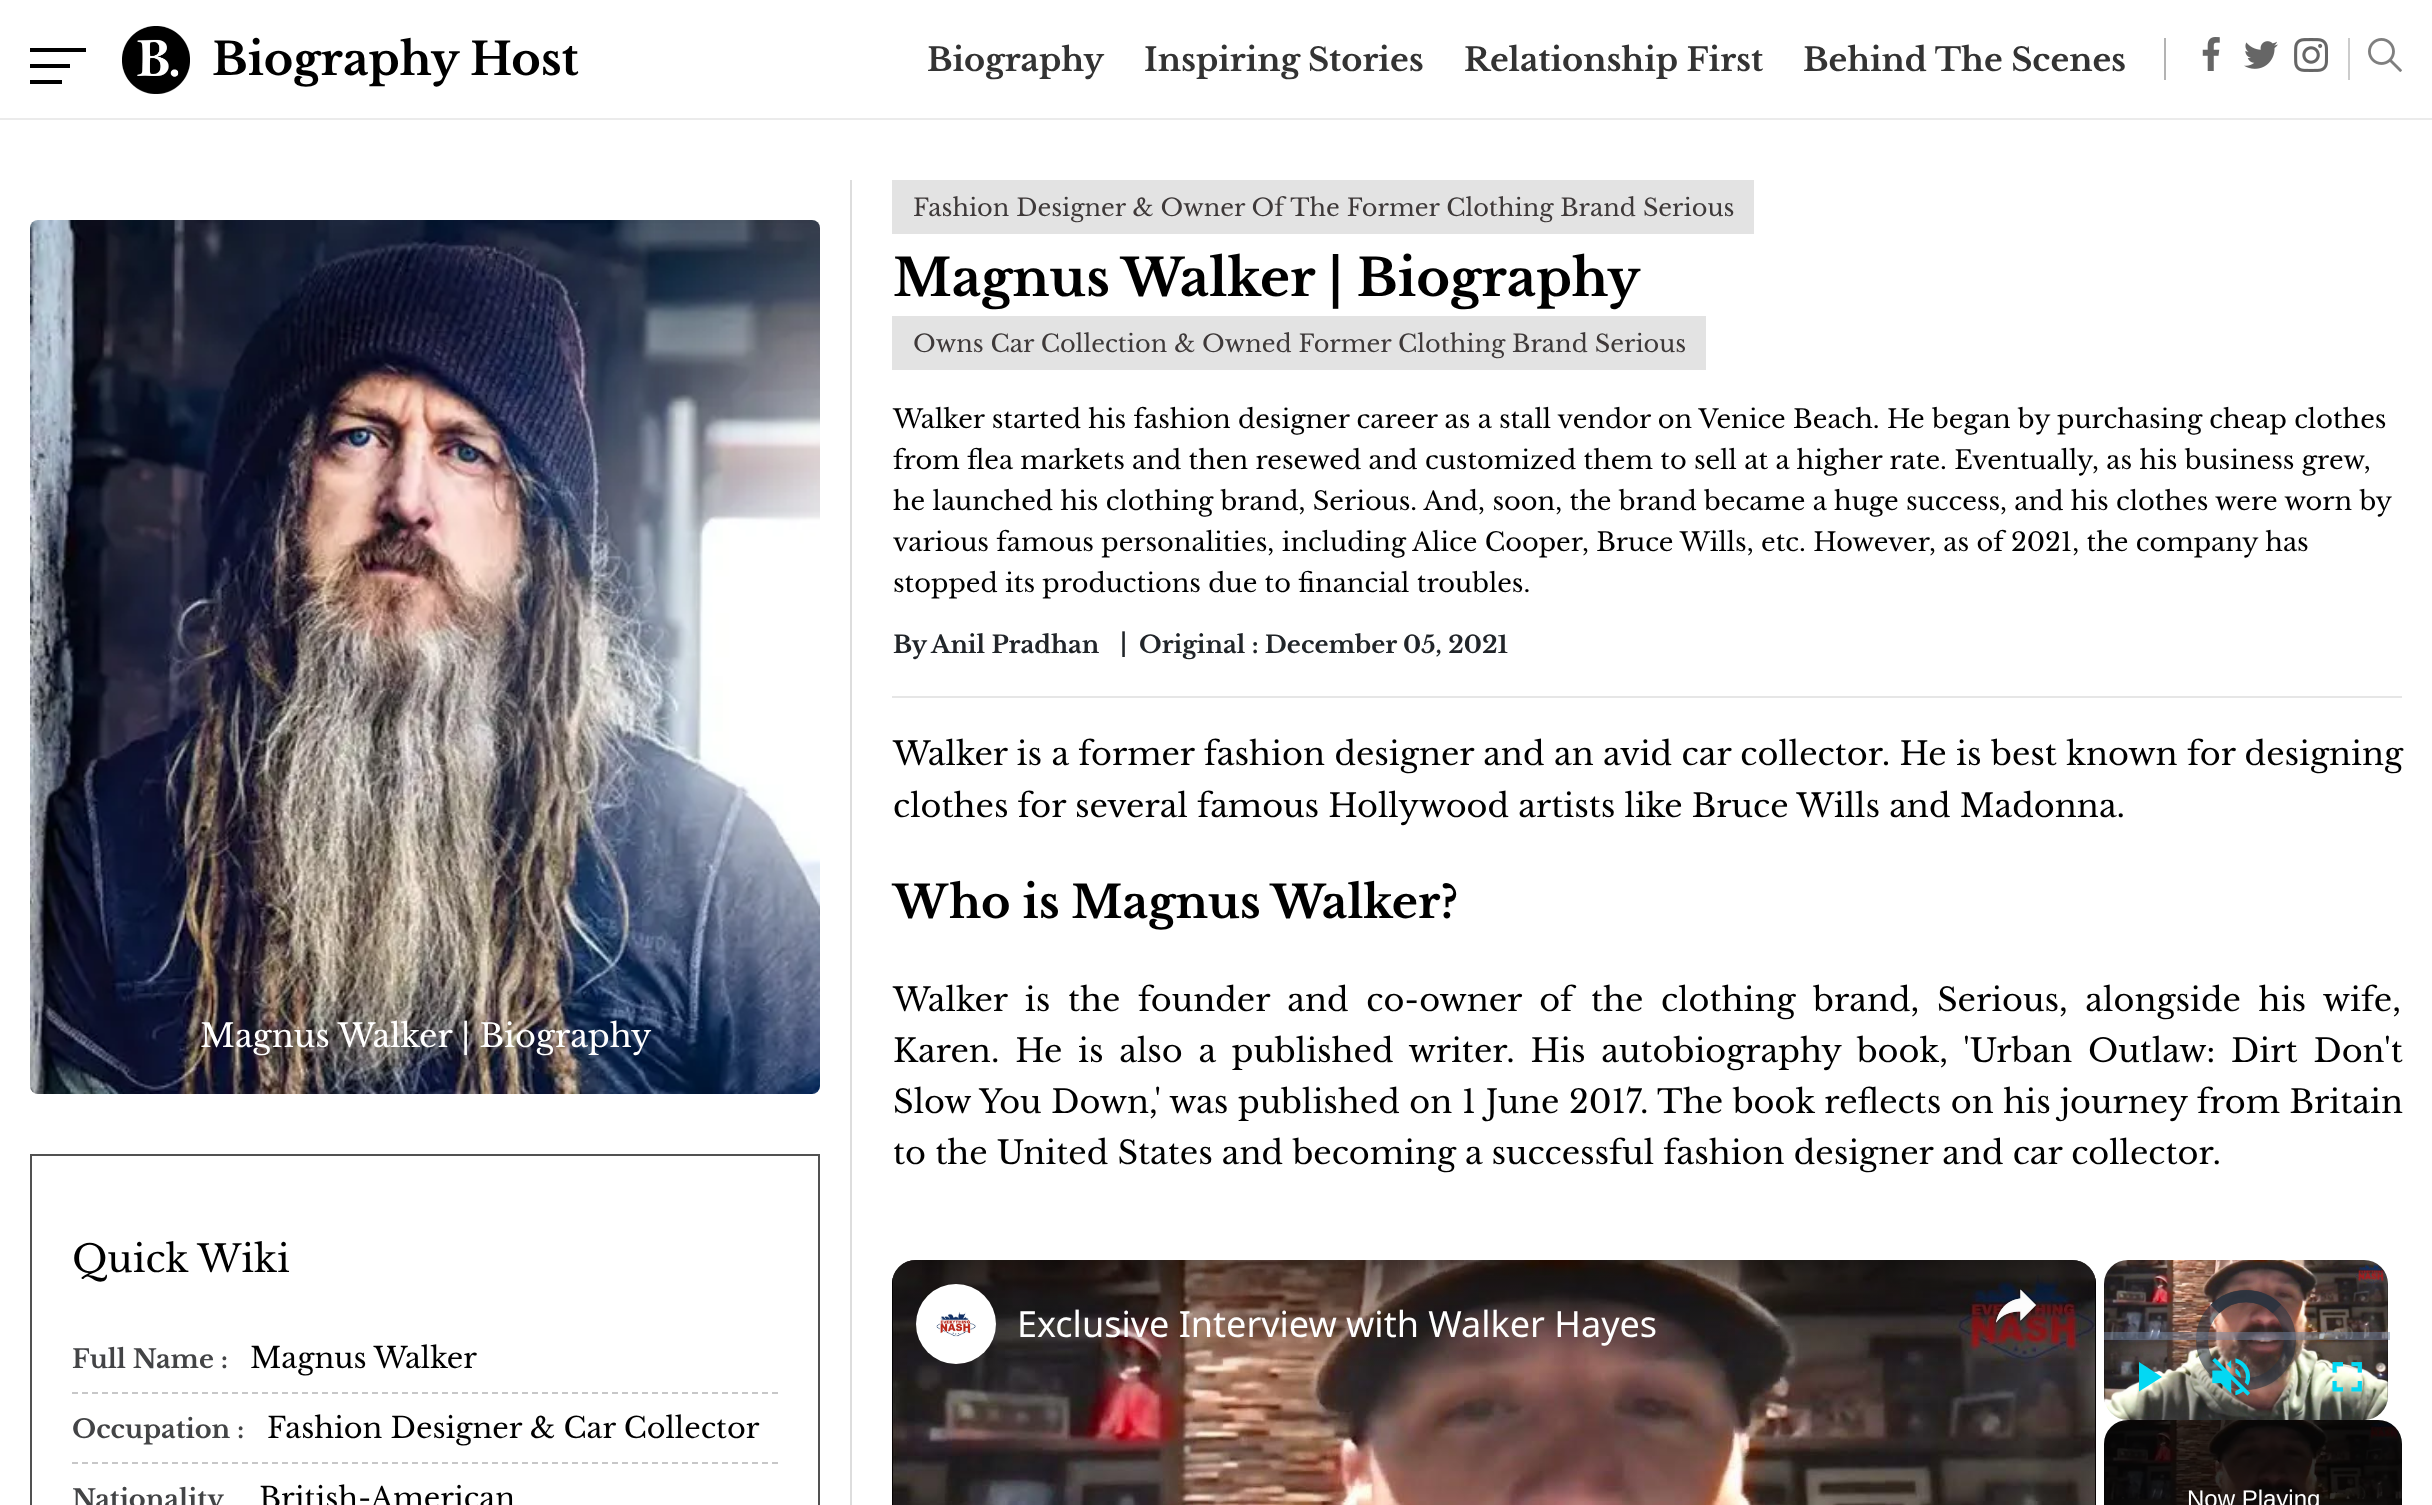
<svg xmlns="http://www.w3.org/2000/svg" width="2432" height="1505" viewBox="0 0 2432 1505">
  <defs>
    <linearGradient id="g1" gradientUnits="userSpaceOnUse" x1="1494" y1="1260" x2="1494" y2="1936"><stop offset="0" stop-color="#000000" stop-opacity="0.6"/><stop offset="0.16" stop-color="#000000" stop-opacity="0"/><stop offset="0.84" stop-color="#000000" stop-opacity="0"/><stop offset="1" stop-color="#000000" stop-opacity="0.8"/></linearGradient>
  </defs>
  <rect width="100%" height="100%" fill="#ffffff"/>
  <rect x="0" y="118" width="2432" height="2" fill="#ebebeb"/>
  <rect x="30" y="48" width="56" height="4" fill="#000000"/>
  <rect x="30" y="64" width="40" height="4" fill="#000000"/>
  <rect x="30" y="80" width="32" height="4" fill="#000000"/>
  <image x="122" y="26" width="68" height="68" href="img1.png"/>
  <text x="212" y="75" font-family="Libre Baskerville" font-size="44.75" font-weight="bold" fill="#000000">Biography Host</text>
  <text x="927" y="71" font-family="Libre Baskerville" font-size="32" font-weight="bold" fill="#333333">Biography</text>
  <text x="1144" y="71" font-family="Libre Baskerville" font-size="32" font-weight="bold" fill="#333333">Inspiring Stories</text>
  <text x="1464" y="71" font-family="Libre Baskerville" font-size="32" font-weight="bold" fill="#333333">Relationship First</text>
  <text x="1803" y="71" font-family="Libre Baskerville" font-size="32" font-weight="bold" fill="#333333">Behind The Scenes</text>
  <rect x="2164" y="38" width="2" height="42" fill="#b3b3b3"/>
  <image x="2202" y="37" width="18" height="34" href="img2.png"/>
  <image x="2244" y="41" width="34" height="28" href="img3.png"/>
  <image x="2294" y="38" width="34" height="34" href="img4.png"/>
  <rect x="2348" y="38" width="2" height="42" fill="#cccccc"/>
  <image x="2368" y="38" width="34" height="34" href="img5.png"/>
  <image x="30" y="220" width="790" height="874" href="img6.png"/>
  <text x="200" y="1047" font-family="Libre Baskerville" font-size="32" fill="#ffffff">Magnus Walker | Biography</text>
  <rect x="31" y="1155" width="788" height="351" fill="none" stroke="#515151" stroke-width="2"/>
  <text x="72" y="1272" font-family="Libre Baskerville" font-size="37.5" fill="#000000">Quick Wiki</text>
  <text x="72" y="1368" font-family="Libre Baskerville" font-size="25.6" font-weight="bold" fill="#434446">Full Name :</text>
  <text x="250" y="1368" font-family="Libre Baskerville" font-size="28.75" fill="#000000">Magnus Walker</text>
  <path d="M72 1393H778" fill="none" stroke="#c7c7c8" stroke-width="2" stroke-dasharray="6 4"/>
  <text x="72" y="1438" font-family="Libre Baskerville" font-size="25.6" font-weight="bold" fill="#434446">Occupation :</text>
  <text x="267" y="1438" font-family="Libre Baskerville" font-size="28.75" fill="#000000">Fashion Designer &amp; Car Collector</text>
  <path d="M72 1463H778" fill="none" stroke="#c7c7c8" stroke-width="2" stroke-dasharray="6 4"/>
  <text x="72" y="1508" font-family="Libre Baskerville" font-size="25.6" font-weight="bold" fill="#434446">Nationality</text>
  <text x="259" y="1508" font-family="Libre Baskerville" font-size="28.75" fill="#000000">British-American</text>
  <rect x="850" y="180" width="2" height="1325" fill="#dddddd"/>
  <rect x="892" y="180" width="862" height="54" fill="#e3e3e3"/>
  <text x="913" y="216" font-family="Libre Baskerville" font-size="24" fill="#3e3939">Fashion Designer &amp; Owner Of The Former Clothing Brand Serious</text>
  <text x="893" y="296" font-family="Libre Baskerville" font-size="51.25" font-weight="bold" fill="#000000">Magnus Walker | Biography</text>
  <rect x="892" y="316" width="814" height="54" fill="#e3e3e3"/>
  <text x="913" y="352" font-family="Libre Baskerville" font-size="24" fill="#3e3939">Owns Car Collection &amp; Owned Former Clothing Brand Serious</text>
  <text x="893" y="428" font-family="Libre Baskerville" font-size="25.6" fill="#000000">Walker started his fashion designer career as a stall vendor on Venice Beach. He began by purchasing cheap clothes</text>
  <text x="893" y="469" font-family="Libre Baskerville" font-size="25.6" fill="#000000">from flea markets and then resewed and customized them to sell at a higher rate. Eventually, as his business grew,</text>
  <text x="893" y="510" font-family="Libre Baskerville" font-size="25.6" fill="#000000">he launched his clothing brand, Serious. And, soon, the brand became a huge success, and his clothes were worn by</text>
  <text x="893" y="551" font-family="Libre Baskerville" font-size="25.6" fill="#000000">various famous personalities, including Alice Cooper, Bruce Wills, etc. However, as of 2021, the company has</text>
  <text x="893" y="592" font-family="Libre Baskerville" font-size="25.6" fill="#000000">stopped its productions due to financial troubles.</text>
  <text x="893" y="653" font-family="Libre Baskerville" font-size="24" font-weight="bold" fill="#212529">By</text>
  <text x="931" y="653" font-family="Libre Baskerville" font-size="24" font-weight="bold" fill="#212529">Anil Pradhan</text>
  <text x="1120" y="651" font-family="Libre Baskerville" font-size="24" font-weight="bold" fill="#212529">|</text>
  <text x="1139" y="653" font-family="Libre Baskerville" font-size="24" font-weight="bold" fill="#212529">Original : December 05, 2021</text>
  <rect x="892" y="696" width="1510" height="2" fill="#e6e6e6"/>
  <text x="893" y="765" word-spacing="0.25" font-family="Libre Baskerville" font-size="32" fill="#000000">Walker is a former fashion designer and an avid car collector. He is best known for designing</text>
  <text x="893" y="817" font-family="Libre Baskerville" font-size="32" fill="#000000">clothes for several famous Hollywood artists like Bruce Wills and Madonna.</text>
  <text x="893" y="918" font-family="Libre Baskerville" font-size="44.75" font-weight="bold" fill="#000000">Who is Magnus Walker?</text>
  <text x="893" y="1011" word-spacing="8.5" font-family="Libre Baskerville" font-size="32" fill="#000000">Walker is the founder and co-owner of the clothing brand, Serious, alongside his wife,</text>
  <text x="893" y="1062" word-spacing="6.6" font-family="Libre Baskerville" font-size="32" fill="#000000">Karen. He is also a published writer. His autobiography book, 'Urban Outlaw: Dirt Don't</text>
  <text x="893" y="1113" word-spacing="0.4" font-family="Libre Baskerville" font-size="32" fill="#000000">Slow You Down,' was published on 1 June 2017. The book reflects on his journey from Britain</text>
  <text x="893" y="1164" font-family="Libre Baskerville" font-size="32" fill="#000000">to the United States and becoming a successful fashion designer and car collector.</text>
  <image x="892" y="1260" width="1204" height="245" href="img7.png"/>
  <image x="892" y="1260" width="1204" height="24" href="img8.png"/>
  <rect x="892" y="1260" width="1204" height="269" rx="24" fill="url(#g1)"/>
  <image x="916" y="1284" width="80" height="80" href="img9.png"/>
  <text x="1017" y="1337" font-family="Noto Sans" font-size="36" fill="#ffffff">Exclusive Interview with Walker Hayes</text>
  <image x="1994" y="1289" width="44" height="36" href="img10.png"/>
  <image x="2104" y="1260" width="284" height="160" href="img11.png"/>
  <circle cx="2246" cy="1340" r="44" fill="none" stroke="#2b333f" stroke-opacity="0.59" stroke-width="12"/>
  <path d="M2215 1309C2232 1292 2260 1292 2277 1309" fill="none" stroke="#2b333f" stroke-opacity="0.59" stroke-width="12"/>
  <path d="M2215 1309C2232 1292 2260 1292 2277 1309" fill="none" stroke="#2b333f" stroke-opacity="0.59" stroke-width="12"/>
  <rect x="2104" y="1332" width="286" height="8" fill="#73859f" fill-opacity="0.5"/>
  <path d="M2139 1362V1391.5L2162 1377Z" fill="#03d8f3"/>
  <image x="2212" y="1358" width="39" height="38" href="img12.png"/>
  <image x="2332" y="1362" width="30" height="30" href="img13.png"/>
  <rect x="2104" y="1420" width="298" height="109" rx="24" fill="#000000"/>
  <image x="2104" y="1420" width="298" height="85" href="img14.png"/>
  <text x="2187" y="1507" font-family="Liberation Sans" font-size="24" fill="#ffffff">Now Playing</text>
</svg>
